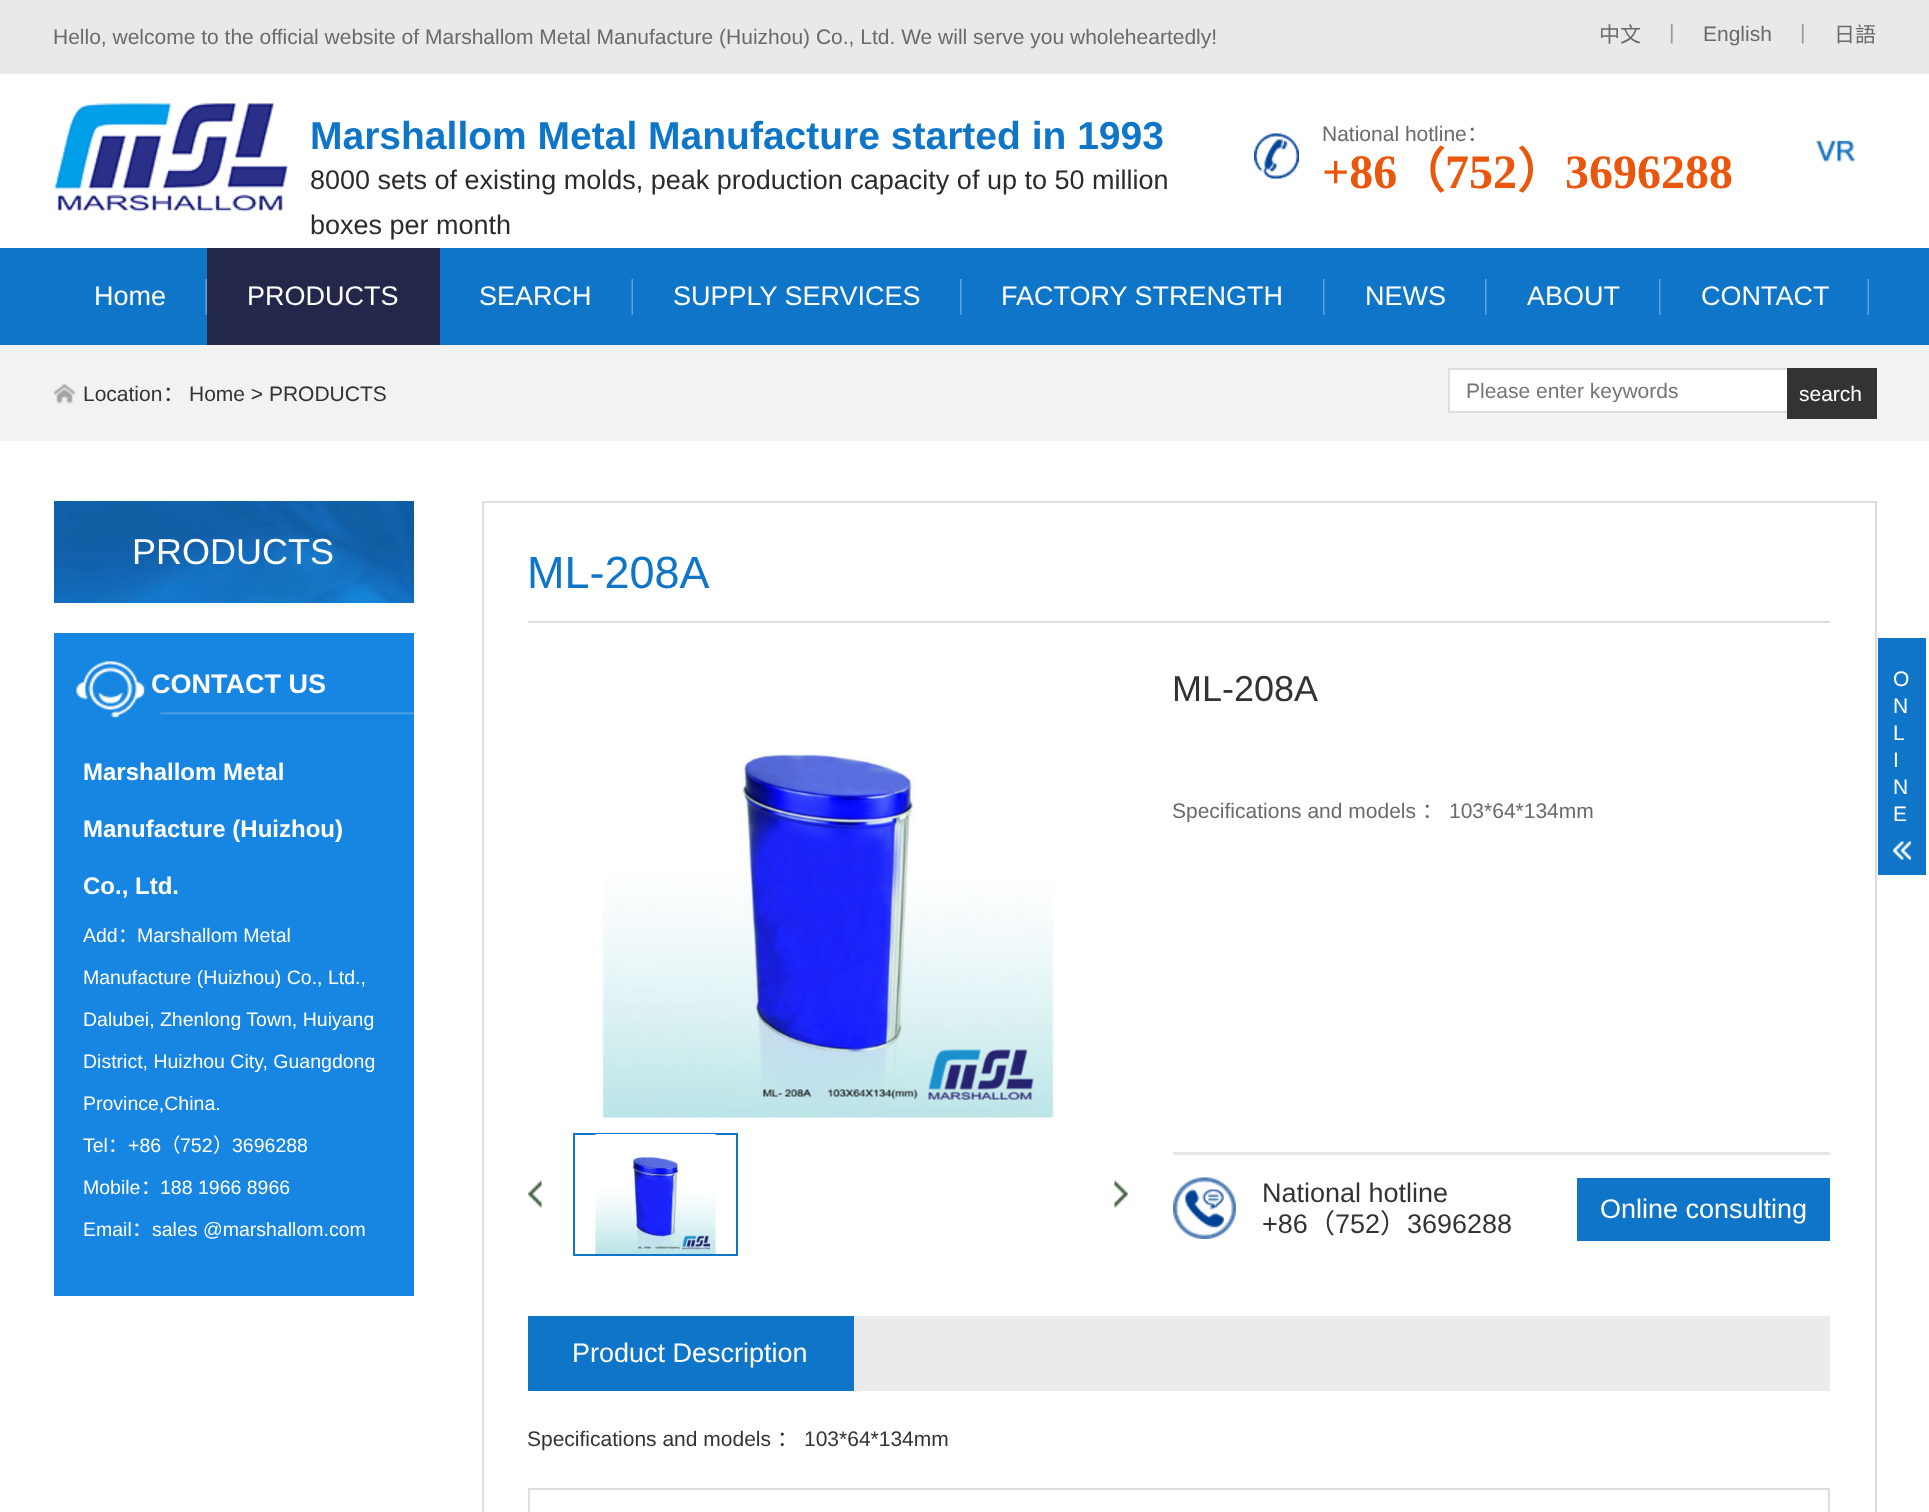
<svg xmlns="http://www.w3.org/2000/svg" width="1929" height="1512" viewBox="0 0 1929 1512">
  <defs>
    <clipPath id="clip1"><rect x="1467" y="378" width="300" height="24"/></clipPath>
  </defs>
  <rect width="100%" height="100%" fill="#ffffff"/>
  <rect x="0" y="0" width="1929" height="74" fill="#e9e9e9"/>
  <text x="53" y="44" font-family="Liberation Sans" font-size="21" fill="#6a6a6a">Hello, welcome to the official website of Marshallom Metal Manufacture (Huizhou) Co., Ltd. We will serve you wholeheartedly!</text>
  <text x="1599" y="42" font-family="Noto Sans CJK SC" font-size="21" fill="#6a6a6a">中文</text>
  <text x="1669" y="39" font-family="Liberation Sans" font-size="21" fill="#999999">|</text>
  <text x="1703" y="41" font-family="Liberation Sans" font-size="21" fill="#6a6a6a">English</text>
  <text x="1800" y="39" font-family="Liberation Sans" font-size="21" fill="#999999">|</text>
  <text x="1834" y="42" font-family="Noto Sans CJK SC" font-size="21" fill="#6a6a6a">日語</text>
  <image x="54" y="103" width="234" height="109" href="img1.png"/>
  <text x="310" y="149" font-family="Liberation Sans" font-size="39" font-weight="bold" fill="#0e75c8">Marshallom Metal Manufacture started in 1993</text>
  <text x="310" y="189" font-family="Liberation Sans" font-size="27" fill="#2b2b2b">8000 sets of existing molds, peak production capacity of up to 50 million</text>
  <text x="310" y="234" font-family="Liberation Sans" font-size="27" fill="#2b2b2b">boxes per month</text>
  <image x="1254" y="133" width="45" height="46" href="img2.png"/>
  <text x="1322" y="141" font-family="Liberation Sans" font-size="21" fill="#6a6a6a">National hotline</text>
  <text x="1467" y="141" font-family="Noto Sans CJK SC" font-size="21" fill="#6a6a6a">：</text>
  <text x="1322" y="188" font-family="Liberation Serif" font-size="48" font-weight="bold" fill="#eb560d">+86</text>
  <text x="1397" y="188" font-family="Noto Sans CJK SC" font-size="48" font-weight="bold" fill="#eb560d">（</text>
  <text x="1445" y="188" font-family="Liberation Serif" font-size="48" font-weight="bold" fill="#eb560d">752</text>
  <text x="1517" y="188" font-family="Noto Sans CJK SC" font-size="48" font-weight="bold" fill="#eb560d">）</text>
  <text x="1565" y="188" font-family="Liberation Serif" font-size="48" font-weight="bold" fill="#eb560d">3696288</text>
  <image x="1816" y="140" width="40" height="23" href="img3.png"/>
  <rect x="0" y="248" width="1929" height="97" fill="#0e75c8"/>
  <image x="205" y="279" width="2" height="36" href="img4.png"/>
  <text x="94" y="305" font-family="Liberation Sans" font-size="27" fill="#ffffff">Home</text>
  <rect x="207" y="248" width="233" height="97" fill="#23274a"/>
  <text x="247" y="305" font-family="Liberation Sans" font-size="27" fill="#ffffff">PRODUCTS</text>
  <image x="631" y="279" width="2" height="36" href="img4.png"/>
  <text x="479" y="305" font-family="Liberation Sans" font-size="27" fill="#ffffff">SEARCH</text>
  <image x="960" y="279" width="2" height="36" href="img5.png"/>
  <text x="673" y="305" font-family="Liberation Sans" font-size="27" fill="#ffffff">SUPPLY SERVICES</text>
  <image x="1323" y="279" width="2" height="36" href="img5.png"/>
  <text x="1001" y="305" font-family="Liberation Sans" font-size="27" fill="#ffffff">FACTORY STRENGTH</text>
  <image x="1485" y="279" width="2" height="36" href="img5.png"/>
  <text x="1365" y="305" font-family="Liberation Sans" font-size="27" fill="#ffffff">NEWS</text>
  <image x="1659" y="279" width="2" height="36" href="img5.png"/>
  <text x="1527" y="305" font-family="Liberation Sans" font-size="27" fill="#ffffff">ABOUT</text>
  <image x="1867" y="279" width="2" height="36" href="img4.png"/>
  <text x="1701" y="305" font-family="Liberation Sans" font-size="27" fill="#ffffff">CONTACT</text>
  <rect x="0" y="345" width="1929" height="96" fill="#f2f2f2"/>
  <image x="54" y="384" width="21" height="20" href="img6.png"/>
  <text x="83" y="401" font-family="Liberation Sans" font-size="21" fill="#333333">Location</text>
  <text x="163" y="401" font-family="Noto Sans CJK SC" font-size="21" fill="#333333">：</text>
  <text x="189" y="401" font-family="Liberation Sans" font-size="21" fill="#333333">Home &gt; PRODUCTS</text>
  <rect x="1450" y="370" width="337" height="41" fill="#ffffff"/>
  <rect x="1449" y="369" width="427" height="43" fill="none" stroke="#dddddd" stroke-width="2"/>
  <g clip-path="url(#clip1)">
    <text x="1466" y="398" font-family="Liberation Sans" font-size="21" fill="#757575">Please enter keywords</text>
  </g>
  <rect x="1787" y="368" width="90" height="51" fill="#333333"/>
  <text x="1799" y="401" font-family="Liberation Sans" font-size="21" fill="#ffffff">search</text>
  <image x="54" y="501" width="360" height="102" href="img7.png"/>
  <text x="132" y="564" font-family="Liberation Sans" font-size="36" fill="#ffffff">PRODUCTS</text>
  <rect x="54" y="633" width="360" height="663" fill="#1785e2"/>
  <image x="76" y="661" width="338" height="57" href="img8.png"/>
  <text x="151" y="693" font-family="Liberation Sans" font-size="27" font-weight="bold" fill="#ffffff">CONTACT US</text>
  <text x="83" y="780" font-family="Liberation Sans" font-size="24" font-weight="bold" fill="#ffffff">Marshallom Metal</text>
  <text x="83" y="837" font-family="Liberation Sans" font-size="24" font-weight="bold" fill="#ffffff">Manufacture (Huizhou)</text>
  <text x="83" y="894" font-family="Liberation Sans" font-size="24" font-weight="bold" fill="#ffffff">Co., Ltd.</text>
  <text x="83" y="942" font-family="Liberation Sans" font-size="19.5" fill="#ffffff">Add</text>
  <text x="118" y="942" font-family="Noto Sans CJK SC" font-size="19.5" fill="#ffffff">：</text>
  <text x="137" y="942" font-family="Liberation Sans" font-size="19.5" fill="#ffffff">Marshallom Metal</text>
  <text x="83" y="984" font-family="Liberation Sans" font-size="19.5" fill="#ffffff">Manufacture (Huizhou) Co., Ltd.,</text>
  <text x="83" y="1026" font-family="Liberation Sans" font-size="19.5" fill="#ffffff">Dalubei, Zhenlong Town, Huiyang</text>
  <text x="83" y="1068" font-family="Liberation Sans" font-size="19.5" fill="#ffffff">District, Huizhou City, Guangdong</text>
  <text x="83" y="1110" font-family="Liberation Sans" font-size="19.5" fill="#ffffff">Province,China.</text>
  <text x="83" y="1152" font-family="Liberation Sans" font-size="19.5" fill="#ffffff">Tel</text>
  <text x="108" y="1152" font-family="Noto Sans CJK SC" font-size="19.5" fill="#ffffff">：</text>
  <text x="128" y="1152" font-family="Liberation Sans" font-size="19.5" fill="#ffffff">+86</text>
  <text x="161" y="1152" font-family="Noto Sans CJK SC" font-size="19.5" fill="#ffffff">（</text>
  <text x="180" y="1152" font-family="Liberation Sans" font-size="19.5" fill="#ffffff">752</text>
  <text x="213" y="1152" font-family="Noto Sans CJK SC" font-size="19.5" fill="#ffffff">）</text>
  <text x="232" y="1152" font-family="Liberation Sans" font-size="19.5" fill="#ffffff">3696288</text>
  <text x="83" y="1194" font-family="Liberation Sans" font-size="19.5" fill="#ffffff">Mobile</text>
  <text x="141" y="1194" font-family="Noto Sans CJK SC" font-size="19.5" fill="#ffffff">：</text>
  <text x="160" y="1194" font-family="Liberation Sans" font-size="19.5" fill="#ffffff">188 1966 8966</text>
  <text x="83" y="1236" font-family="Liberation Sans" font-size="19.5" fill="#ffffff">Email</text>
  <text x="132" y="1236" font-family="Noto Sans CJK SC" font-size="19.5" fill="#ffffff">：</text>
  <text x="152" y="1236" font-family="Liberation Sans" font-size="19.5" fill="#ffffff">sales @marshallom.com</text>
  <rect x="483" y="502" width="1393" height="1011" fill="none" stroke="#dddddd" stroke-width="2"/>
  <rect x="528" y="621" width="1302" height="2" fill="#dddddd"/>
  <text x="527" y="588" font-family="Liberation Sans" font-size="45" fill="#0e75c8">ML-208A</text>
  <image x="602" y="751" width="452" height="367" href="img9.png"/>
  <image x="528" y="1180" width="14" height="28" href="img10.png"/>
  <rect x="574" y="1134" width="163" height="121" fill="none" stroke="#0e75c8" stroke-width="2"/>
  <image x="595" y="1134" width="121" height="120" href="img11.png"/>
  <image x="1114" y="1180" width="14" height="28" href="img12.png"/>
  <text x="1172" y="701" font-family="Liberation Sans" font-size="36" fill="#333333">ML-208A</text>
  <text x="1172" y="818" font-family="Liberation Sans" font-size="21" fill="#6a6a6a">Specifications and models</text>
  <text x="1422" y="818" font-family="Noto Sans CJK SC" font-size="21" fill="#6a6a6a">：</text>
  <text x="1449" y="818" font-family="Liberation Sans" font-size="21" fill="#6a6a6a">103*64*134mm</text>
  <image x="1173" y="1177" width="63" height="62" href="img13.png"/>
  <rect x="1173" y="1152" width="657" height="3" fill="#e6e6e6"/>
  <text x="1262" y="1202" font-family="Liberation Sans" font-size="27" fill="#333333">National hotline</text>
  <text x="1262" y="1233" font-family="Liberation Sans" font-size="27" fill="#333333">+86</text>
  <text x="1308" y="1233" font-family="Noto Sans CJK SC" font-size="27" fill="#333333">（</text>
  <text x="1335" y="1233" font-family="Liberation Sans" font-size="27" fill="#333333">752</text>
  <text x="1380" y="1233" font-family="Noto Sans CJK SC" font-size="27" fill="#333333">）</text>
  <text x="1407" y="1233" font-family="Liberation Sans" font-size="27" fill="#333333">3696288</text>
  <rect x="1577" y="1178" width="253" height="63" fill="#0e75c8"/>
  <text x="1600" y="1218" font-family="Liberation Sans" font-size="27" fill="#ffffff">Online consulting</text>
  <rect x="854" y="1316" width="976" height="75" fill="#ebebeb"/>
  <rect x="528" y="1316" width="326" height="75" fill="#0e75c8"/>
  <text x="572" y="1362" font-family="Liberation Sans" font-size="27" fill="#ffffff">Product Description</text>
  <text x="527" y="1446" font-family="Liberation Sans" font-size="21" fill="#333333">Specifications and models</text>
  <text x="777" y="1446" font-family="Noto Sans CJK SC" font-size="21" fill="#333333">：</text>
  <text x="804" y="1446" font-family="Liberation Sans" font-size="21" fill="#333333">103*64*134mm</text>
  <rect x="529" y="1489" width="1300" height="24" fill="none" stroke="#dddddd" stroke-width="2"/>
  <rect x="1878" y="638" width="48" height="237" fill="#0e75c8"/>
  <text x="1893" y="686" font-family="Liberation Sans" font-size="21" fill="#ffffff">O</text>
  <text x="1893" y="713" font-family="Liberation Sans" font-size="21" fill="#ffffff">N</text>
  <text x="1893" y="740" font-family="Liberation Sans" font-size="21" fill="#ffffff">L</text>
  <text x="1893" y="767" font-family="Liberation Sans" font-size="21" fill="#ffffff">I</text>
  <text x="1893" y="794" font-family="Liberation Sans" font-size="21" fill="#ffffff">N</text>
  <text x="1893" y="821" font-family="Liberation Sans" font-size="21" fill="#ffffff">E</text>
  <image x="1893" y="841" width="18" height="19" href="img14.png"/>
</svg>
